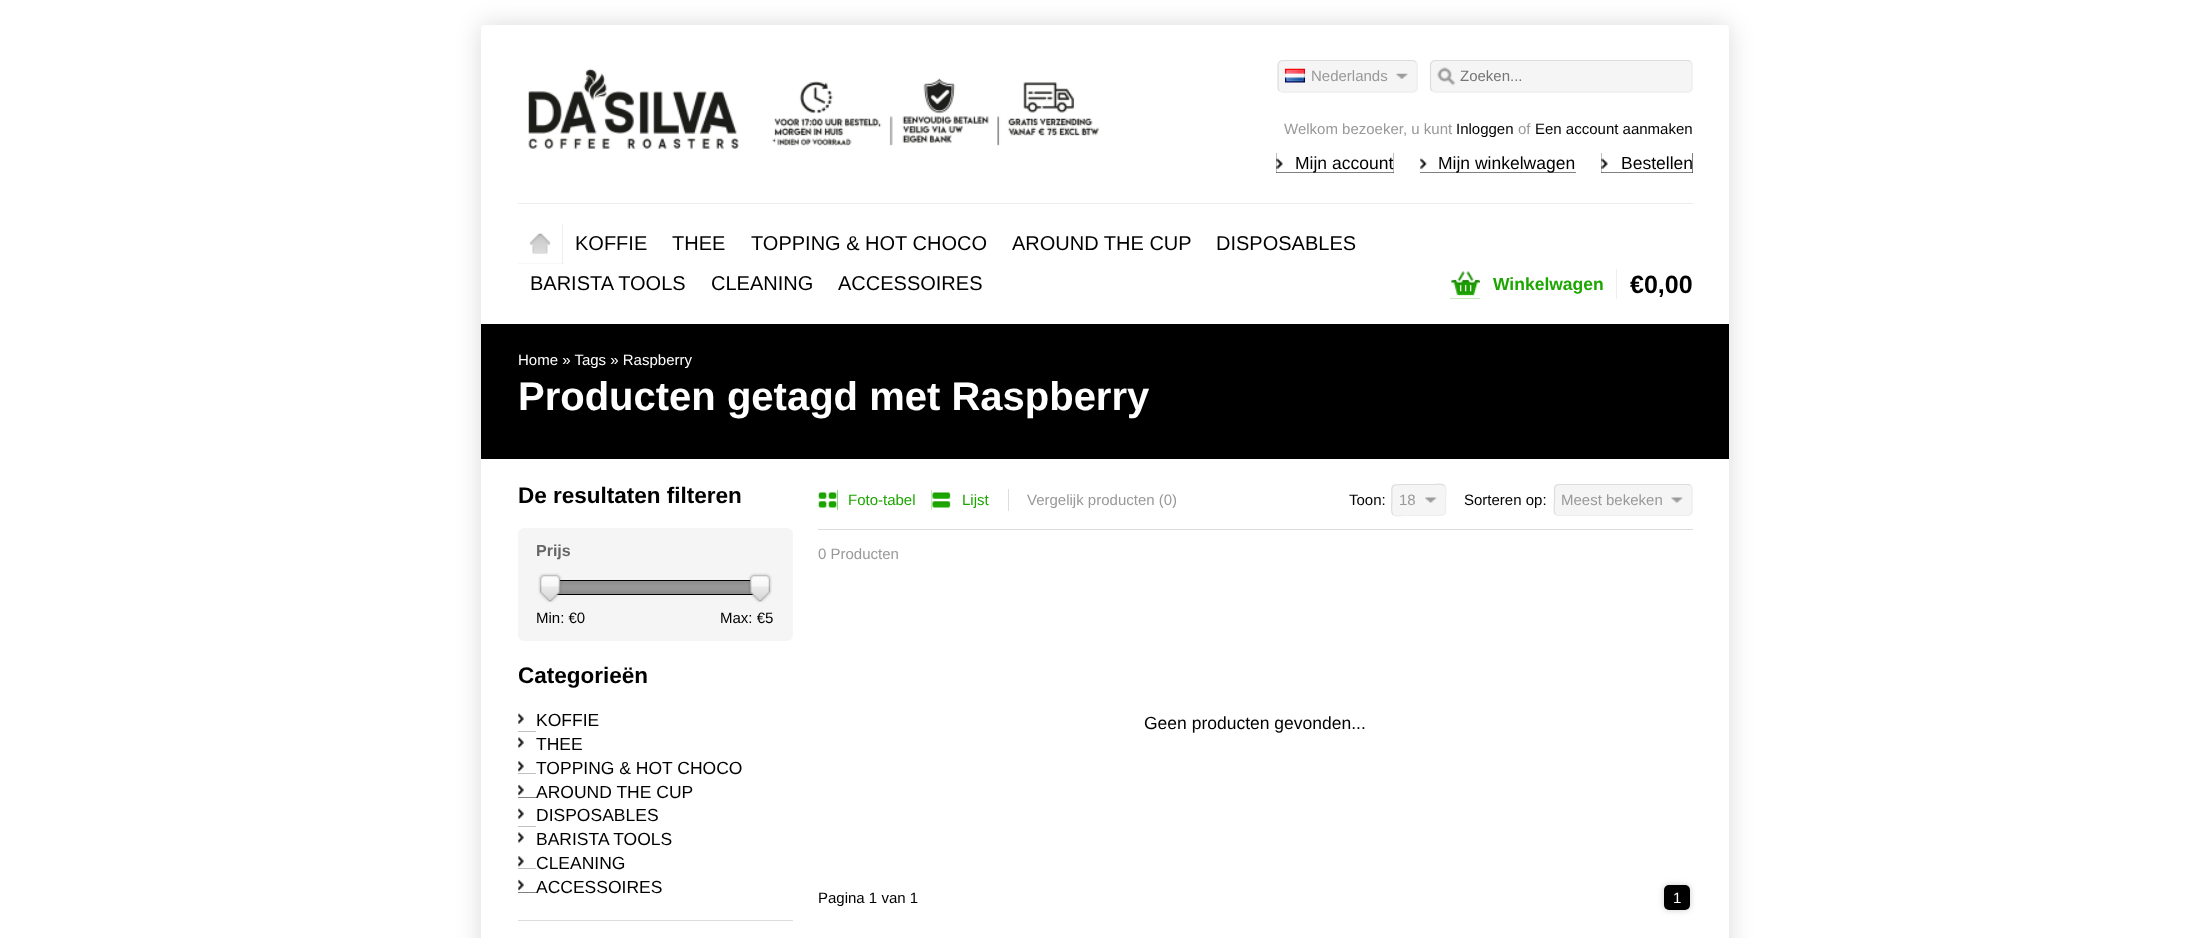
<svg xmlns="http://www.w3.org/2000/svg" width="2209" height="938" viewBox="0 0 2209 938">
  <defs>
    <filter id="blur1" x="-50%" y="-200%" width="200%" height="500%"><feGaussianBlur stdDeviation="12.5"/></filter>
    <filter id="blur2" x="-50%" y="-200%" width="200%" height="500%"><feGaussianBlur stdDeviation="3"/></filter>
  </defs>
  <rect width="100%" height="100%" fill="#ffffff"/>
  <rect x="481" y="25" width="1248" height="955" rx="4" fill="#000000" fill-opacity="0.15" filter="url(#blur1)"/>
  <rect x="481" y="25" width="1248" height="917" rx="4" fill="#ffffff"/>
  <image x="528" y="68" width="571" height="81" href="img1.png"/>
  <rect x="1278" y="60" width="140" height="33" rx="5" fill="#f5f5f5"/>
  <image x="1396" y="73" width="12" height="6" href="img2.png"/>
  <path d="M1415.5 62C1416.5 62.5 1417 64 1417 65V87.5C1417 88.5 1416.5 90 1415.5 90.5C1415 91.5 1413.5 92 1412.5 92H1282.5C1281.5 92 1280 91.5 1279.5 90.5" fill="none" stroke="#eeeeee" stroke-width="1.2"/>
  <path d="M1279.5 90.5C1278.5 90 1278 88.5 1278 87.5V65C1278 64 1278.5 62.5 1279.5 62C1280 61 1281.5 60.5 1282.5 60.5H1412.5C1413.5 60.5 1415 61 1415.5 62" fill="none" stroke="#dddddd" stroke-width="1.2"/>
  <image x="1285" y="68" width="20" height="15" href="img3.png"/>
  <text x="1311" y="81" font-family="Liberation Sans" font-size="15" fill="#999999">Nederlands</text>
  <rect x="1430" y="60" width="263" height="33" rx="5" fill="#f5f5f5"/>
  <image x="1437" y="67" width="19" height="19" href="img4.png"/>
  <path d="M1690.5 62C1691.5 62.5 1692 64 1692 65V87.5C1692 88.5 1691.5 90 1690.5 90.5C1690 91.5 1688.5 92 1687.5 92H1435C1434 92 1432.5 91.5 1432 90.5" fill="none" stroke="#eeeeee" stroke-width="1.2"/>
  <path d="M1432 90.5C1431 90 1430.5 88.5 1430.5 87.5V65C1430.5 64 1431 62.5 1432 62C1432.5 61 1434 60.5 1435 60.5H1687.5C1688.5 60.5 1690 61 1690.5 62" fill="none" stroke="#dddddd" stroke-width="1.2"/>
  <text x="1460" y="81" font-family="Liberation Sans" font-size="15" fill="#757575">Zoeken...</text>
  <text x="1284" y="134" font-family="Liberation Sans" font-size="15" fill="#999999">Welkom bezoeker, u kunt</text>
  <text x="1456" y="134" font-family="Liberation Sans" font-size="15" fill="#000000">Inloggen</text>
  <text x="1518" y="134" font-family="Liberation Sans" font-size="15" fill="#999999">of</text>
  <text x="1535" y="134" font-family="Liberation Sans" font-size="15" fill="#000000">Een account aanmaken</text>
  <rect x="1276" y="153" width="118" height="20" fill="#000000"/>
  <image x="1276" y="153" width="118" height="20" href="img5.png"/>
  <rect x="1420" y="158" width="156" height="15" fill="#000000"/>
  <image x="1420" y="153" width="156" height="20" href="img6.png"/>
  <rect x="1601" y="153" width="92" height="20" fill="#000000"/>
  <image x="1601" y="153" width="92" height="20" href="img7.png"/>
  <text x="1295" y="169" font-family="Liberation Sans" font-size="17.5" fill="#000000">Mijn account</text>
  <text x="1438" y="169" font-family="Liberation Sans" font-size="17.5" fill="#000000">Mijn winkelwagen</text>
  <text x="1621" y="169" font-family="Liberation Sans" font-size="17.5" fill="#000000">Bestellen</text>
  <rect x="518" y="203" width="1175" height="1" fill="#eeeeee"/>
  <rect x="518" y="224" width="45" height="40" fill="#dddddd"/>
  <image x="518" y="224" width="45" height="40" href="img8.png"/>
  <text x="575" y="250" font-family="Liberation Sans" font-size="20" fill="#000000">KOFFIE</text>
  <text x="672" y="250" font-family="Liberation Sans" font-size="20" fill="#000000">THEE</text>
  <text x="751" y="250" font-family="Liberation Sans" font-size="20" fill="#000000">TOPPING &amp; HOT CHOCO</text>
  <text x="1012" y="250" font-family="Liberation Sans" font-size="20" fill="#000000">AROUND THE CUP</text>
  <text x="1216" y="250" font-family="Liberation Sans" font-size="20" fill="#000000">DISPOSABLES</text>
  <text x="530" y="290" font-family="Liberation Sans" font-size="20" fill="#000000">BARISTA TOOLS</text>
  <text x="711" y="290" font-family="Liberation Sans" font-size="20" fill="#000000">CLEANING</text>
  <text x="838" y="290" font-family="Liberation Sans" font-size="20" fill="#000000">ACCESSOIRES</text>
  <rect x="1450" y="271" width="30" height="28" fill="#1ca600"/>
  <image x="1450" y="269" width="30" height="30" href="img9.png"/>
  <rect x="1616" y="269" width="1" height="30" fill="#eeeeee"/>
  <text x="1493" y="290" font-family="Liberation Sans" font-size="17.5" font-weight="bold" fill="#1ca600">Winkelwagen</text>
  <text x="1630" y="293" font-family="Liberation Sans" font-size="25" font-weight="bold" fill="#000000">€0,00</text>
  <rect x="481" y="324" width="1248" height="135" fill="#000000"/>
  <text x="518" y="365" font-family="Liberation Sans" font-size="15" fill="#ffffff">Home » Tags » Raspberry</text>
  <text x="518" y="410" font-family="Liberation Sans" font-size="40" font-weight="bold" fill="#ffffff">Producten getagd met Raspberry</text>
  <text x="518" y="503" font-family="Liberation Sans" font-size="22.5" font-weight="bold" fill="#000000">De resultaten filteren</text>
  <rect x="518" y="528" width="275" height="113" rx="6" fill="#f5f5f5"/>
  <text x="536" y="556" font-family="Liberation Sans" font-size="16" font-weight="bold" fill="#666666">Prijs</text>
  <rect x="556" y="581" width="198" height="13" fill="#999999"/>
  <image x="556" y="581" width="198" height="13" href="img12.png"/>
  <rect x="549.5" y="580.5" width="211" height="14" fill="none" stroke="#000000"/>
  <image x="538" y="573" width="24" height="30" href="img10.png"/>
  <image x="748" y="573" width="24" height="30" href="img11.png"/>
  <text x="536" y="623" font-family="Liberation Sans" font-size="15" fill="#000000">Min: €0</text>
  <text x="720" y="623" font-family="Liberation Sans" font-size="15" fill="#000000">Max: €5</text>
  <rect x="518" y="920" width="275" height="1" fill="#dddddd"/>
  <text x="518" y="683" font-family="Liberation Sans" font-size="22.5" font-weight="bold" fill="#000000">Categorieën</text>
  <rect x="518" y="713" width="6" height="11" fill="#000000"/>
  <image x="518" y="708" width="18" height="18" href="img13.png"/>
  <text x="536" y="726" font-family="Liberation Sans" font-size="17.5" fill="#000000">KOFFIE</text>
  <rect x="518" y="731" width="18" height="17" fill="#000000"/>
  <image x="518" y="731" width="18" height="19" href="img14.png"/>
  <text x="536" y="750" font-family="Liberation Sans" font-size="17.5" fill="#000000">THEE</text>
  <rect x="518" y="761" width="18" height="13" fill="#000000"/>
  <image x="518" y="755" width="18" height="19" href="img15.png"/>
  <text x="536" y="774" font-family="Liberation Sans" font-size="17.5" fill="#000000">TOPPING &amp; HOT CHOCO</text>
  <rect x="518" y="784" width="18" height="14" fill="#000000"/>
  <image x="518" y="779" width="18" height="19" href="img16.png"/>
  <text x="536" y="798" font-family="Liberation Sans" font-size="17.5" fill="#000000">AROUND THE CUP</text>
  <rect x="518" y="808" width="6" height="11" fill="#000000"/>
  <image x="518" y="803" width="18" height="18" href="img13.png"/>
  <text x="536" y="821" font-family="Liberation Sans" font-size="17.5" fill="#000000">DISPOSABLES</text>
  <rect x="518" y="826" width="18" height="17" fill="#000000"/>
  <image x="518" y="826" width="18" height="19" href="img14.png"/>
  <text x="536" y="845" font-family="Liberation Sans" font-size="17.5" fill="#000000">BARISTA TOOLS</text>
  <rect x="518" y="856" width="18" height="13" fill="#000000"/>
  <image x="518" y="850" width="18" height="19" href="img15.png"/>
  <text x="536" y="869" font-family="Liberation Sans" font-size="17.5" fill="#000000">CLEANING</text>
  <rect x="518" y="879" width="18" height="14" fill="#000000"/>
  <image x="518" y="874" width="18" height="19" href="img17.png"/>
  <text x="536" y="893" font-family="Liberation Sans" font-size="17.5" fill="#000000">ACCESSOIRES</text>
  <rect x="818" y="529" width="875" height="1" fill="#dddddd"/>
  <rect x="818" y="490" width="20" height="20" fill="#1ca600"/>
  <image x="818" y="490" width="20" height="20" href="img18.png"/>
  <text x="848" y="505" font-family="Liberation Sans" font-size="15" fill="#1ca600">Foto-tabel</text>
  <rect x="931" y="490" width="20" height="20" fill="#1ca600"/>
  <image x="931" y="490" width="20" height="20" href="img19.png"/>
  <text x="962" y="505" font-family="Liberation Sans" font-size="15" fill="#1ca600">Lijst</text>
  <rect x="1008" y="489" width="1" height="22" fill="#dddddd"/>
  <text x="1027" y="505" font-family="Liberation Sans" font-size="15" fill="#999999">Vergelijk producten (0)</text>
  <text x="1349" y="505" font-family="Liberation Sans" font-size="15" fill="#000000">Toon:</text>
  <rect x="1391" y="484" width="55" height="32" rx="5" fill="#f5f5f5"/>
  <image x="1425" y="497" width="12" height="6" href="img20.png"/>
  <path d="M1444.5 485.5C1447 488 1445.5 497 1445.5 500C1445.5 515 1448.5 515.5 1434 515.5H1404C1401.5 515.5 1395.5 517 1393 514.5" fill="none" stroke="#eeeeee" stroke-width="1.2"/>
  <path d="M1393 514.5C1390.5 512 1392 503 1392 500C1392 485 1389 484.5 1404 484.5H1434C1436 484.5 1442 483 1444.5 485.5" fill="none" stroke="#dddddd" stroke-width="1.2"/>
  <text x="1399" y="505" font-family="Liberation Sans" font-size="15" fill="#999999">18</text>
  <text x="1464" y="505" font-family="Liberation Sans" font-size="15" fill="#000000">Sorteren op:</text>
  <rect x="1554" y="484" width="139" height="32" rx="5" fill="#f5f5f5"/>
  <image x="1671" y="497" width="12" height="6" href="img21.png"/>
  <path d="M1690.5 485.5C1693 488 1692 497 1692 500V507.5C1692 511 1692 515.5 1687.5 515.5H1557.5L1555.5 514.5" fill="none" stroke="#eeeeee" stroke-width="1.2"/>
  <path d="M1555.5 514.5C1553 512 1554.5 503 1554.5 500V492.5C1554.5 489 1554 484.5 1559 484.5H1689L1690.5 485.5" fill="none" stroke="#dddddd" stroke-width="1.2"/>
  <text x="1561" y="505" font-family="Liberation Sans" font-size="15" fill="#999999">Meest bekeken</text>
  <text x="818" y="559" font-family="Liberation Sans" font-size="15" fill="#999999">0 Producten</text>
  <text x="1144" y="729" font-family="Liberation Sans" font-size="17.5" fill="#000000">Geen producten gevonden...</text>
  <text x="818" y="903" font-family="Liberation Sans" font-size="15" fill="#000000">Pagina 1 van 1</text>
  <rect x="1664" y="885" width="26" height="25" rx="5" fill="#cccccc" filter="url(#blur2)"/>
  <rect x="1664" y="885" width="26" height="25" rx="5" fill="#000000"/>
  <text x="1673" y="903" font-family="Liberation Sans" font-size="15" fill="#ffffff">1</text>
</svg>
